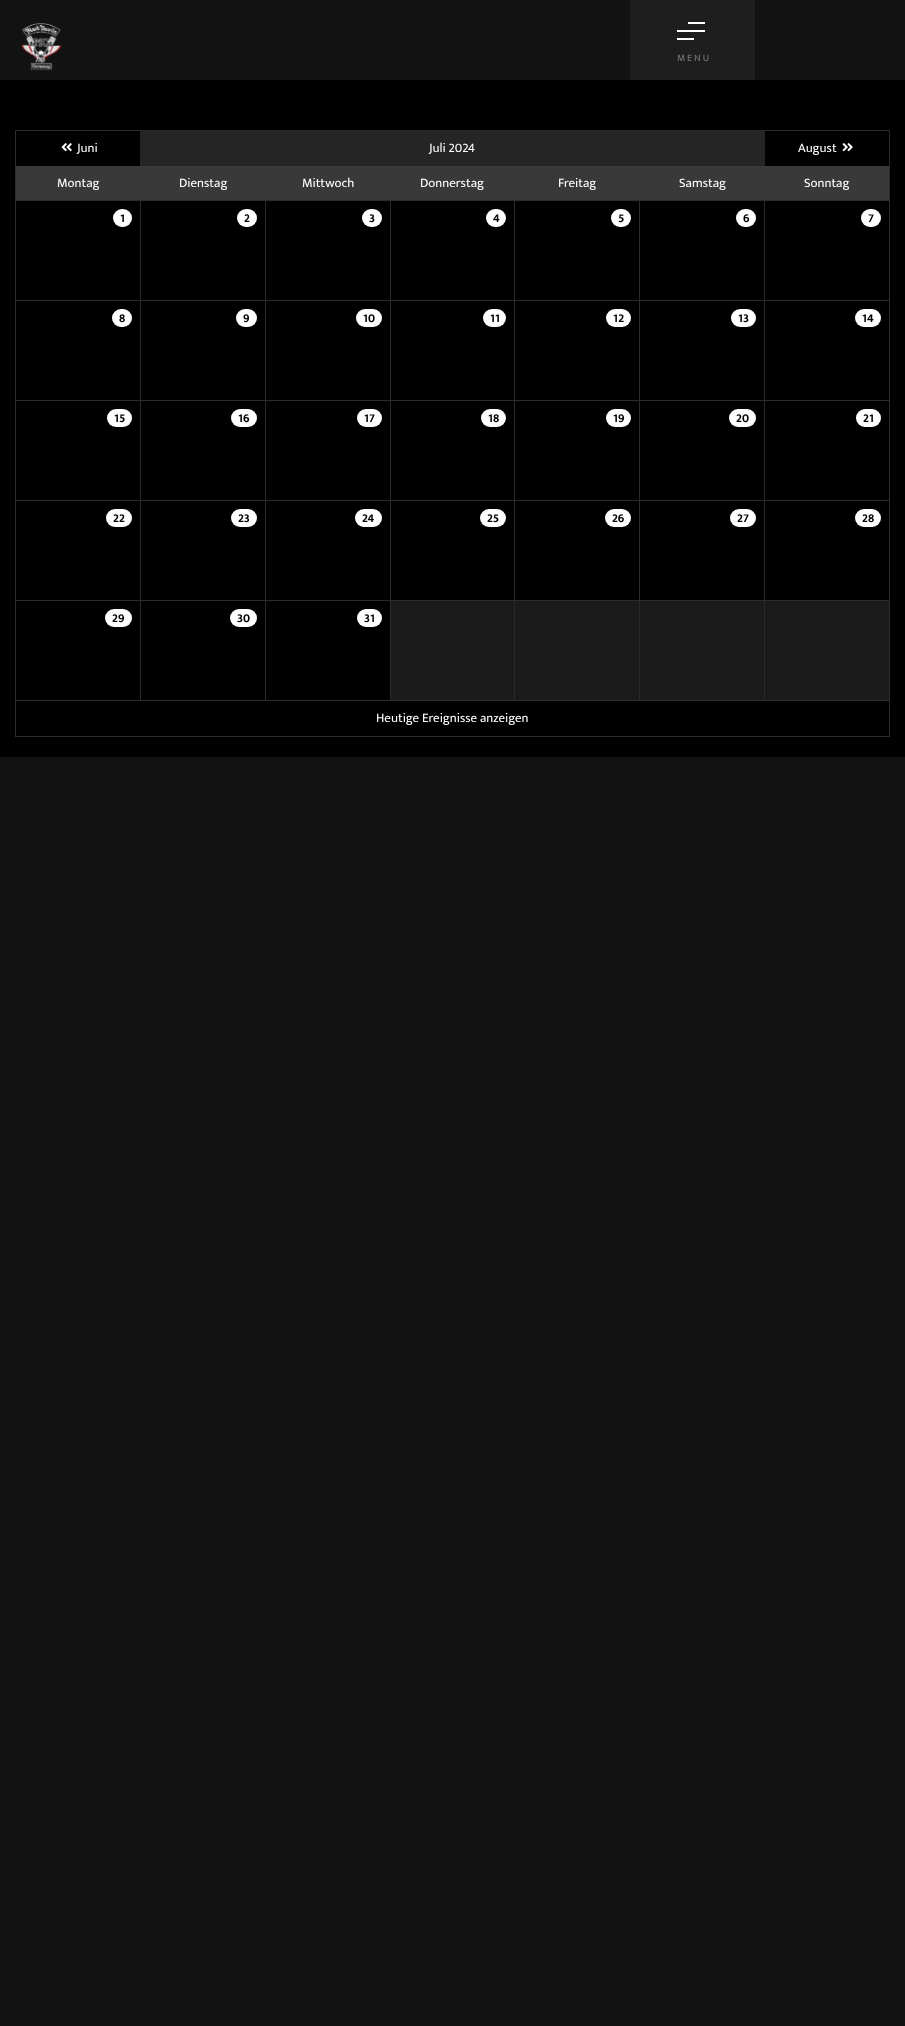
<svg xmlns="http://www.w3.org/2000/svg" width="905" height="2026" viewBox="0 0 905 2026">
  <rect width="100%" height="100%" fill="#121212"/>
  <image x="20" y="23" width="42" height="48" href="img1.png"/>
  <rect x="630" y="0" width="125" height="80" fill="#1e1e1e"/>
  <rect x="688" y="22" width="17" height="2" fill="#ffffff"/>
  <rect x="677" y="30" width="28" height="2" fill="#ffffff"/>
  <rect x="677" y="38" width="17" height="2" fill="#ffffff"/>
  <text x="677" y="61" font-family="Mukta Vaani" font-size="10" letter-spacing="2" fill="#7a7a7a">MENU</text>
  <rect x="0" y="80" width="905" height="677" fill="#000000"/>
  <rect x="15" y="130" width="875" height="1" fill="#2c2a2a"/>
  <rect x="889" y="130" width="1" height="607" fill="#2c2a2a"/>
  <rect x="15" y="736" width="875" height="1" fill="#2c2a2a"/>
  <rect x="15" y="130" width="1" height="607" fill="#2c2a2a"/>
  <image x="61" y="143" width="11" height="9" href="img2.png"/>
  <text x="77" y="152" font-family="Mukta Vaani" font-size="13" fill="#ffffff">Juni</text>
  <rect x="140" y="131" width="625" height="35" fill="#252525"/>
  <text x="429" y="152" font-family="Mukta Vaani" font-size="13" fill="#ffffff">Juli 2024</text>
  <text x="798" y="152" font-family="Mukta Vaani" font-size="13" fill="#ffffff">August</text>
  <image x="842" y="143" width="11" height="9" href="img3.png"/>
  <rect x="16" y="166" width="873" height="34" fill="#393939"/>
  <text x="57" y="187" font-family="Mukta Vaani" font-size="13" fill="#ffffff">Montag</text>
  <text x="179" y="187" font-family="Mukta Vaani" font-size="13" fill="#ffffff">Dienstag</text>
  <text x="302" y="187" font-family="Mukta Vaani" font-size="13" fill="#ffffff">Mittwoch</text>
  <text x="420" y="187" font-family="Mukta Vaani" font-size="13" fill="#ffffff">Donnerstag</text>
  <text x="558" y="187" font-family="Mukta Vaani" font-size="13" fill="#ffffff">Freitag</text>
  <text x="679" y="187" font-family="Mukta Vaani" font-size="13" fill="#ffffff">Samstag</text>
  <text x="804" y="187" font-family="Mukta Vaani" font-size="13" fill="#ffffff">Sonntag</text>
  <rect x="764" y="200" width="126" height="1" fill="#2c2a2a"/>
  <rect x="764" y="300" width="126" height="1" fill="#2c2a2a"/>
  <rect x="764" y="400" width="126" height="1" fill="#2c2a2a"/>
  <rect x="764" y="500" width="126" height="1" fill="#2c2a2a"/>
  <rect x="764" y="600" width="126" height="1" fill="#2c2a2a"/>
  <rect x="15" y="700" width="875" height="1" fill="#2c2a2a"/>
  <rect x="764" y="600" width="1" height="101" fill="#2c2a2a"/>
  <rect x="639" y="600" width="126" height="1" fill="#2c2a2a"/>
  <rect x="764" y="500" width="1" height="101" fill="#2c2a2a"/>
  <rect x="639" y="500" width="126" height="1" fill="#2c2a2a"/>
  <rect x="764" y="400" width="1" height="101" fill="#2c2a2a"/>
  <rect x="639" y="400" width="126" height="1" fill="#2c2a2a"/>
  <rect x="764" y="300" width="1" height="101" fill="#2c2a2a"/>
  <rect x="639" y="300" width="126" height="1" fill="#2c2a2a"/>
  <rect x="764" y="200" width="1" height="101" fill="#2c2a2a"/>
  <rect x="639" y="200" width="126" height="1" fill="#2c2a2a"/>
  <rect x="639" y="600" width="1" height="101" fill="#2c2a2a"/>
  <rect x="514" y="600" width="126" height="1" fill="#2c2a2a"/>
  <rect x="639" y="500" width="1" height="101" fill="#2c2a2a"/>
  <rect x="514" y="500" width="126" height="1" fill="#2c2a2a"/>
  <rect x="639" y="400" width="1" height="101" fill="#2c2a2a"/>
  <rect x="514" y="400" width="126" height="1" fill="#2c2a2a"/>
  <rect x="639" y="300" width="1" height="101" fill="#2c2a2a"/>
  <rect x="514" y="300" width="126" height="1" fill="#2c2a2a"/>
  <rect x="639" y="200" width="1" height="101" fill="#2c2a2a"/>
  <rect x="514" y="200" width="126" height="1" fill="#2c2a2a"/>
  <rect x="514" y="600" width="1" height="101" fill="#2c2a2a"/>
  <rect x="390" y="600" width="125" height="1" fill="#2c2a2a"/>
  <rect x="514" y="500" width="1" height="101" fill="#2c2a2a"/>
  <rect x="390" y="500" width="125" height="1" fill="#2c2a2a"/>
  <rect x="514" y="400" width="1" height="101" fill="#2c2a2a"/>
  <rect x="390" y="400" width="125" height="1" fill="#2c2a2a"/>
  <rect x="514" y="300" width="1" height="101" fill="#2c2a2a"/>
  <rect x="390" y="300" width="125" height="1" fill="#2c2a2a"/>
  <rect x="514" y="200" width="1" height="101" fill="#2c2a2a"/>
  <rect x="390" y="200" width="125" height="1" fill="#2c2a2a"/>
  <rect x="390" y="600" width="1" height="101" fill="#2c2a2a"/>
  <rect x="265" y="600" width="126" height="1" fill="#2c2a2a"/>
  <rect x="390" y="500" width="1" height="101" fill="#2c2a2a"/>
  <rect x="265" y="500" width="126" height="1" fill="#2c2a2a"/>
  <rect x="390" y="400" width="1" height="101" fill="#2c2a2a"/>
  <rect x="265" y="400" width="126" height="1" fill="#2c2a2a"/>
  <rect x="390" y="300" width="1" height="101" fill="#2c2a2a"/>
  <rect x="265" y="300" width="126" height="1" fill="#2c2a2a"/>
  <rect x="390" y="200" width="1" height="101" fill="#2c2a2a"/>
  <rect x="265" y="200" width="126" height="1" fill="#2c2a2a"/>
  <rect x="265" y="600" width="1" height="101" fill="#2c2a2a"/>
  <rect x="140" y="600" width="126" height="1" fill="#2c2a2a"/>
  <rect x="265" y="500" width="1" height="101" fill="#2c2a2a"/>
  <rect x="140" y="500" width="126" height="1" fill="#2c2a2a"/>
  <rect x="265" y="400" width="1" height="101" fill="#2c2a2a"/>
  <rect x="140" y="400" width="126" height="1" fill="#2c2a2a"/>
  <rect x="265" y="300" width="1" height="101" fill="#2c2a2a"/>
  <rect x="140" y="300" width="126" height="1" fill="#2c2a2a"/>
  <rect x="265" y="200" width="1" height="101" fill="#2c2a2a"/>
  <rect x="140" y="200" width="126" height="1" fill="#2c2a2a"/>
  <rect x="140" y="600" width="1" height="101" fill="#2c2a2a"/>
  <rect x="15" y="600" width="126" height="1" fill="#2c2a2a"/>
  <rect x="140" y="500" width="1" height="101" fill="#2c2a2a"/>
  <rect x="15" y="500" width="126" height="1" fill="#2c2a2a"/>
  <rect x="140" y="400" width="1" height="101" fill="#2c2a2a"/>
  <rect x="15" y="400" width="126" height="1" fill="#2c2a2a"/>
  <rect x="140" y="300" width="1" height="101" fill="#2c2a2a"/>
  <rect x="15" y="300" width="126" height="1" fill="#2c2a2a"/>
  <rect x="140" y="200" width="1" height="101" fill="#2c2a2a"/>
  <rect x="15" y="200" width="126" height="1" fill="#2c2a2a"/>
  <rect x="113" y="209" width="19" height="18" rx="9" fill="#ffffff"/>
  <text x="120" y="222" font-family="Mukta Vaani" font-size="12" font-weight="bold" fill="#000000">1</text>
  <rect x="237" y="209" width="20" height="18" rx="9" fill="#ffffff"/>
  <text x="244" y="222" font-family="Mukta Vaani" font-size="12" font-weight="bold" fill="#000000">2</text>
  <rect x="362" y="209" width="20" height="18" rx="9" fill="#ffffff"/>
  <text x="369" y="222" font-family="Mukta Vaani" font-size="12" font-weight="bold" fill="#000000">3</text>
  <rect x="486" y="209" width="20" height="18" rx="9" fill="#ffffff"/>
  <text x="493" y="222" font-family="Mukta Vaani" font-size="12" font-weight="bold" fill="#000000">4</text>
  <rect x="611" y="209" width="20" height="18" rx="9" fill="#ffffff"/>
  <text x="618" y="222" font-family="Mukta Vaani" font-size="12" font-weight="bold" fill="#000000">5</text>
  <rect x="736" y="209" width="20" height="18" rx="9" fill="#ffffff"/>
  <text x="743" y="222" font-family="Mukta Vaani" font-size="12" font-weight="bold" fill="#000000">6</text>
  <rect x="861" y="209" width="20" height="18" rx="9" fill="#ffffff"/>
  <text x="868" y="222" font-family="Mukta Vaani" font-size="12" font-weight="bold" fill="#000000">7</text>
  <rect x="112" y="309" width="20" height="18" rx="9" fill="#ffffff"/>
  <text x="119" y="322" font-family="Mukta Vaani" font-size="12" font-weight="bold" fill="#000000">8</text>
  <rect x="236" y="309" width="21" height="18" rx="9" fill="#ffffff"/>
  <text x="243" y="322" font-family="Mukta Vaani" font-size="12" font-weight="bold" fill="#000000">9</text>
  <rect x="356" y="309" width="26" height="18" rx="9" fill="#ffffff"/>
  <text x="363" y="322" font-family="Mukta Vaani" font-size="12" font-weight="bold" fill="#000000">10</text>
  <rect x="483" y="309" width="23" height="18" rx="9" fill="#ffffff"/>
  <text x="490" y="322" font-family="Mukta Vaani" font-size="12" font-weight="bold" fill="#000000">11</text>
  <rect x="606" y="309" width="25" height="18" rx="9" fill="#ffffff"/>
  <text x="613" y="322" font-family="Mukta Vaani" font-size="12" font-weight="bold" fill="#000000">12</text>
  <rect x="731" y="309" width="25" height="18" rx="9" fill="#ffffff"/>
  <text x="738" y="322" font-family="Mukta Vaani" font-size="12" font-weight="bold" fill="#000000">13</text>
  <rect x="855" y="309" width="26" height="18" rx="9" fill="#ffffff"/>
  <text x="862" y="322" font-family="Mukta Vaani" font-size="12" font-weight="bold" fill="#000000">14</text>
  <rect x="107" y="409" width="25" height="18" rx="9" fill="#ffffff"/>
  <text x="114" y="422" font-family="Mukta Vaani" font-size="12" font-weight="bold" fill="#000000">15</text>
  <rect x="231" y="409" width="26" height="18" rx="9" fill="#ffffff"/>
  <text x="238" y="422" font-family="Mukta Vaani" font-size="12" font-weight="bold" fill="#000000">16</text>
  <rect x="357" y="409" width="25" height="18" rx="9" fill="#ffffff"/>
  <text x="364" y="422" font-family="Mukta Vaani" font-size="12" font-weight="bold" fill="#000000">17</text>
  <rect x="481" y="409" width="25" height="18" rx="9" fill="#ffffff"/>
  <text x="488" y="422" font-family="Mukta Vaani" font-size="12" font-weight="bold" fill="#000000">18</text>
  <rect x="606" y="409" width="25" height="18" rx="9" fill="#ffffff"/>
  <text x="613" y="422" font-family="Mukta Vaani" font-size="12" font-weight="bold" fill="#000000">19</text>
  <rect x="729" y="409" width="27" height="18" rx="9" fill="#ffffff"/>
  <text x="736" y="422" font-family="Mukta Vaani" font-size="12" font-weight="bold" fill="#000000">20</text>
  <rect x="856" y="409" width="25" height="18" rx="9" fill="#ffffff"/>
  <text x="863" y="422" font-family="Mukta Vaani" font-size="12" font-weight="bold" fill="#000000">21</text>
  <rect x="106" y="509" width="26" height="18" rx="9" fill="#ffffff"/>
  <text x="113" y="522" font-family="Mukta Vaani" font-size="12" font-weight="bold" fill="#000000">22</text>
  <rect x="231" y="509" width="26" height="18" rx="9" fill="#ffffff"/>
  <text x="238" y="522" font-family="Mukta Vaani" font-size="12" font-weight="bold" fill="#000000">23</text>
  <rect x="355" y="509" width="27" height="18" rx="9" fill="#ffffff"/>
  <text x="362" y="522" font-family="Mukta Vaani" font-size="12" font-weight="bold" fill="#000000">24</text>
  <rect x="480" y="509" width="26" height="18" rx="9" fill="#ffffff"/>
  <text x="487" y="522" font-family="Mukta Vaani" font-size="12" font-weight="bold" fill="#000000">25</text>
  <rect x="605" y="509" width="26" height="18" rx="9" fill="#ffffff"/>
  <text x="612" y="522" font-family="Mukta Vaani" font-size="12" font-weight="bold" fill="#000000">26</text>
  <rect x="730" y="509" width="26" height="18" rx="9" fill="#ffffff"/>
  <text x="737" y="522" font-family="Mukta Vaani" font-size="12" font-weight="bold" fill="#000000">27</text>
  <rect x="855" y="509" width="26" height="18" rx="9" fill="#ffffff"/>
  <text x="862" y="522" font-family="Mukta Vaani" font-size="12" font-weight="bold" fill="#000000">28</text>
  <rect x="105" y="609" width="27" height="18" rx="9" fill="#ffffff"/>
  <text x="112" y="622" font-family="Mukta Vaani" font-size="12" font-weight="bold" fill="#000000">29</text>
  <rect x="230" y="609" width="27" height="18" rx="9" fill="#ffffff"/>
  <text x="237" y="622" font-family="Mukta Vaani" font-size="12" font-weight="bold" fill="#000000">30</text>
  <rect x="357" y="609" width="25" height="18" rx="9" fill="#ffffff"/>
  <text x="364" y="622" font-family="Mukta Vaani" font-size="12" font-weight="bold" fill="#000000">31</text>
  <rect x="391" y="601" width="123" height="99" fill="#1b1b1b"/>
  <rect x="515" y="601" width="124" height="99" fill="#1b1b1b"/>
  <rect x="640" y="601" width="124" height="99" fill="#1b1b1b"/>
  <rect x="765" y="601" width="124" height="99" fill="#1b1b1b"/>
  <text x="376" y="722" font-family="Mukta Vaani" font-size="13" fill="#ffffff">Heutige Ereignisse anzeigen</text>
</svg>
